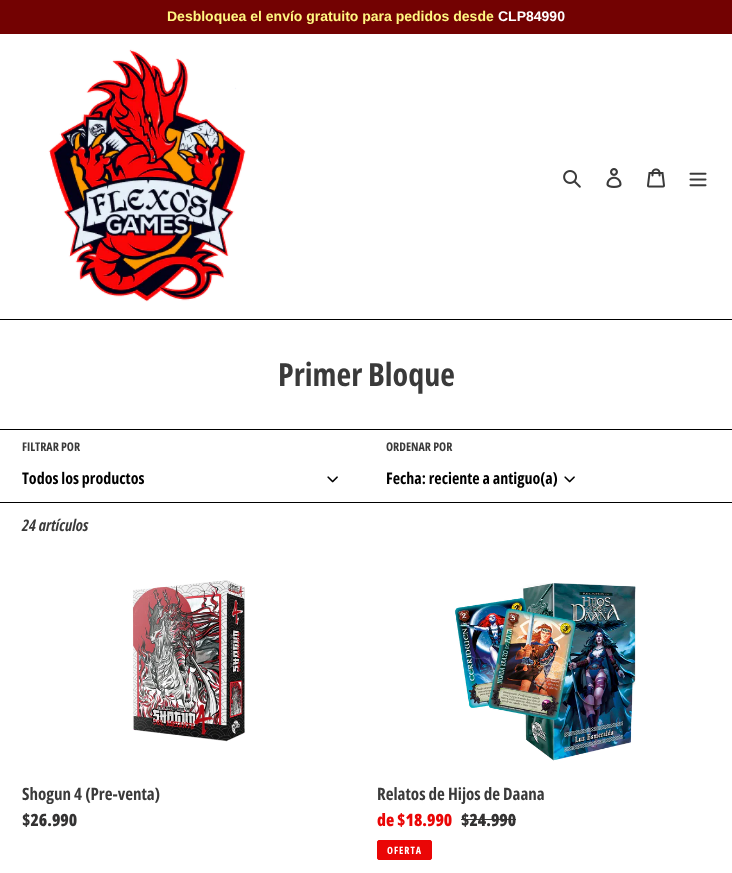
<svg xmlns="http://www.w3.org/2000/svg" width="732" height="873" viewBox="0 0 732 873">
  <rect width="100%" height="100%" fill="#ffffff"/>
  <rect x="0" y="0" width="732" height="34" fill="#730202"/>
  <text x="167" y="21" font-family="Liberation Sans" font-size="14" font-weight="bold" fill="#fff681">Desbloquea el envío gratuito para pedidos desde</text>
  <text x="498" y="21" font-family="Liberation Sans" font-size="14" font-weight="bold" fill="#ffffff">CLP84990</text>
  <rect x="0" y="319" width="732" height="1" fill="#000000"/>
  <image x="48" y="49" width="198" height="253" href="img1.png"/>
  <image x="563" y="170" width="18" height="18" href="img2.png"/>
  <image x="606" y="168" width="16" height="20" href="img3.png"/>
  <image x="647" y="168" width="18" height="20" href="img4.png"/>
  <image x="689" y="172" width="18" height="15" href="img5.png"/>
  <text x="278" y="386" font-family="Open Sans Condensed" font-size="32" font-weight="bold" fill="#3a3a3a">Primer Bloque</text>
  <rect x="0" y="429" width="732" height="1" fill="#000000"/>
  <text x="22" y="451" font-family="Open Sans Condensed" font-size="12" font-weight="bold" fill="#3a3a3a">FILTRAR POR</text>
  <text x="22" y="484" font-family="Open Sans Condensed" font-size="16" font-weight="bold" fill="#000000">Todos los productos</text>
  <image x="327" y="476" width="11" height="7" href="img6.png"/>
  <text x="386" y="451" font-family="Open Sans Condensed" font-size="12" font-weight="bold" fill="#3a3a3a">ORDENAR POR</text>
  <text x="386" y="484" font-family="Open Sans Condensed" font-size="16" font-weight="bold" fill="#000000">Fecha: reciente a antiguo(a)</text>
  <image x="564" y="476" width="11" height="7" href="img6.png"/>
  <rect x="0" y="502" width="732" height="1" fill="#000000"/>
  <text x="22" y="531" font-family="Open Sans Condensed" font-size="16" font-weight="bold" font-style="italic" fill="#3a3a3a">24 artículos</text>
  <image x="132" y="580" width="113" height="162" href="img7.png"/>
  <text x="22" y="800" font-family="Open Sans Condensed" font-size="17" font-weight="bold" fill="#3a3a3a">Shogun 4 (Pre-venta)</text>
  <text x="22" y="826" font-family="Open Sans Condensed" font-size="17" font-weight="800" fill="#333232">$26.990</text>
  <image x="454" y="583" width="182" height="178" href="img8.png"/>
  <text x="377" y="800" font-family="Open Sans Condensed" font-size="17" font-weight="bold" fill="#3a3a3a">Relatos de Hijos de Daana</text>
  <text x="377" y="826" font-family="Open Sans Condensed" font-size="17" font-weight="800" fill="#ea0606">de $18.990</text>
  <text x="461" y="826" font-family="Open Sans Condensed" font-size="17" font-weight="800" fill="#333232">$24.990</text>
  <rect x="461" y="819" width="55" height="1" fill="#333232"/>
  <rect x="377.5" y="840.5" width="54" height="19" rx="1.5" fill="#ea0606" stroke="#ea0606"/>
  <text x="387" y="854" font-family="Open Sans Condensed" font-size="10" font-weight="bold" letter-spacing="1" fill="#ffffff">OFERTA</text>
</svg>
